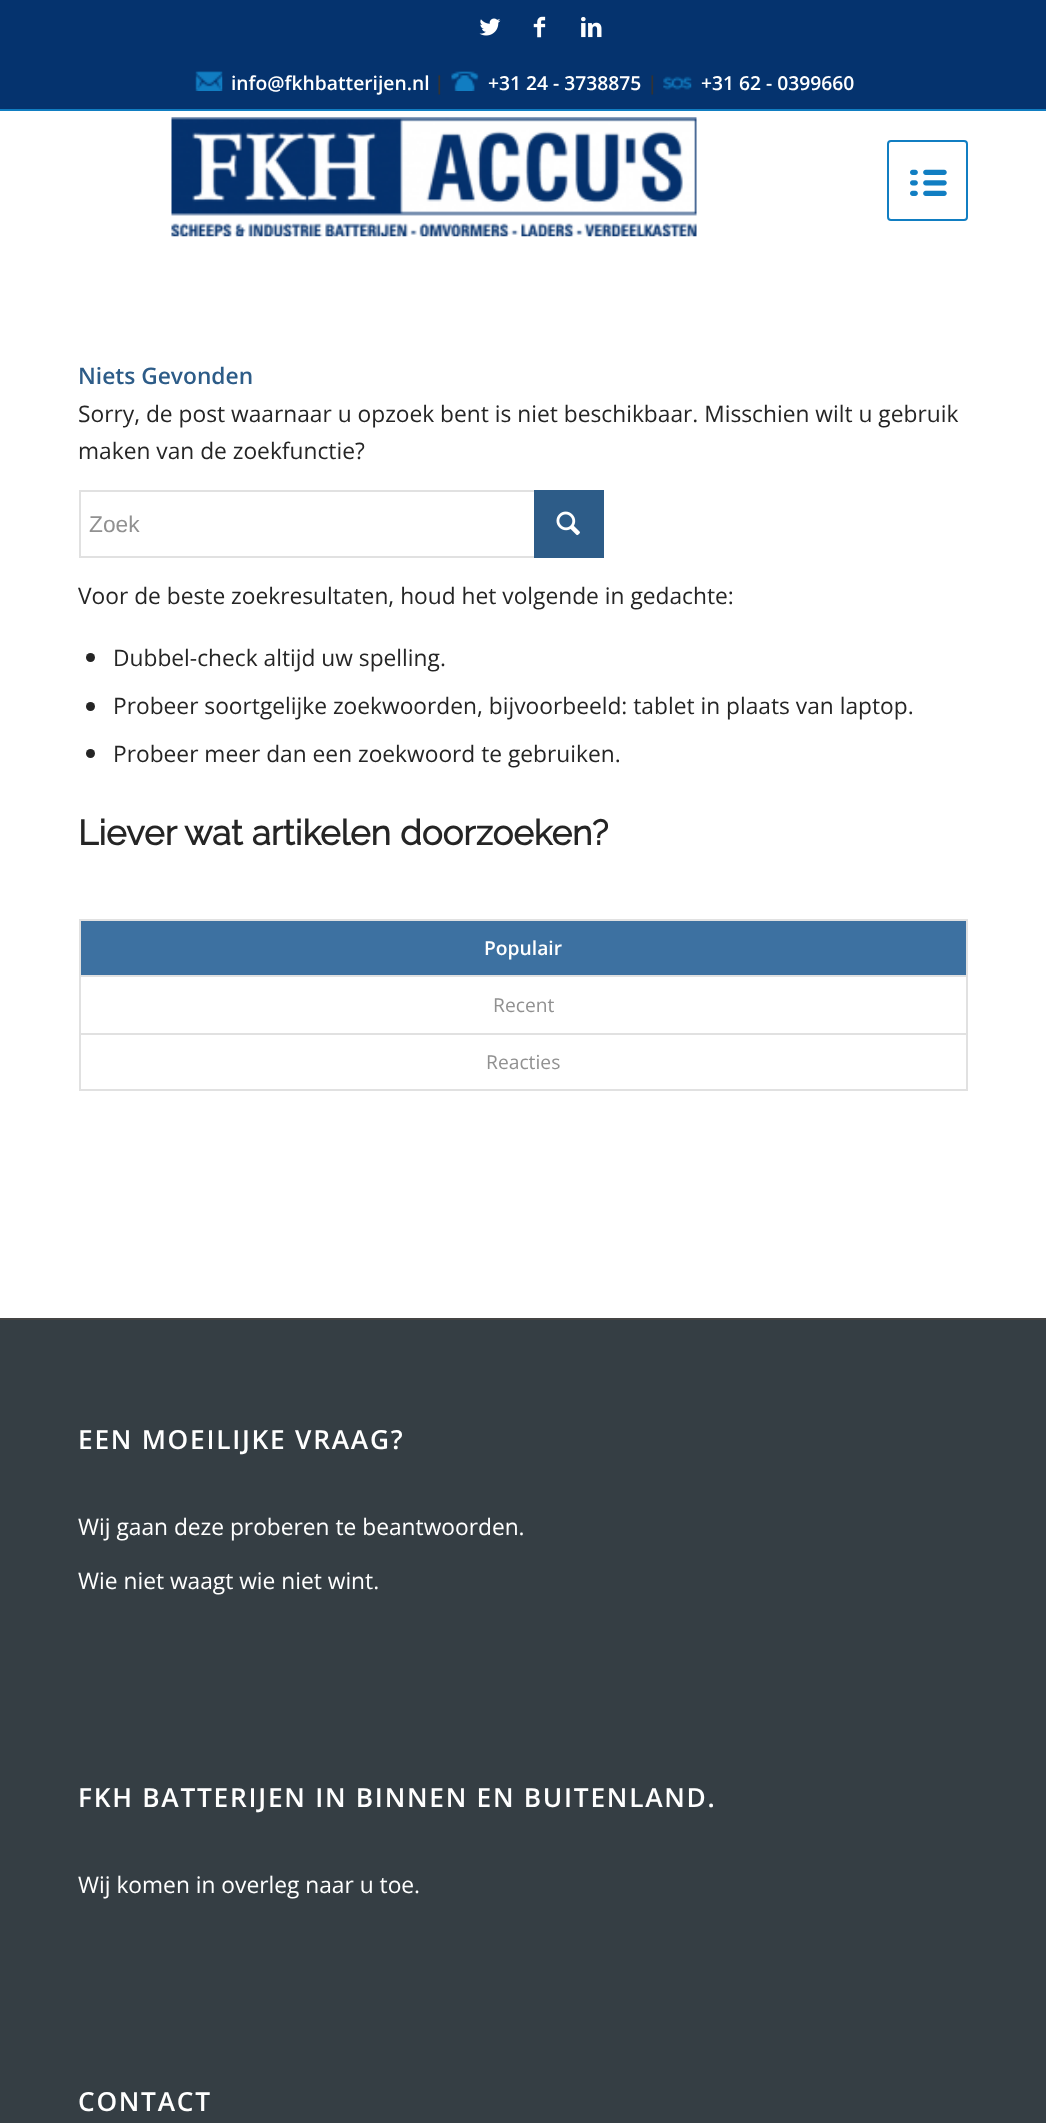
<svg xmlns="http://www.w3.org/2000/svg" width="1046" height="2123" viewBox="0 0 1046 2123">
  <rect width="100%" height="100%" fill="#ffffff"/>
  <rect x="0" y="0" width="1046" height="109" fill="#05336e"/>
  <rect x="0" y="109" width="1046" height="2" fill="#117ec2"/>
  <image x="479" y="18" width="22" height="18" href="img1.png"/>
  <image x="533" y="16" width="13" height="22" href="img2.png"/>
  <image x="581" y="16" width="21" height="22" href="img3.png"/>
  <image x="195" y="71" width="28" height="20" href="img4.png"/>
  <text x="231" y="90" font-family="Open Sans" font-size="19.25" font-weight="600" fill="#ffffff">info@fkhbatterijen.nl</text>
  <text x="434" y="90" font-family="Open Sans" font-size="19.25" font-weight="600" fill="#333333">|</text>
  <image x="451" y="71" width="28" height="20" href="img5.png"/>
  <text x="488" y="90" font-family="Open Sans" font-size="19.25" font-weight="600" fill="#ffffff">+31 24 - 3738875</text>
  <text x="647" y="90" font-family="Open Sans" font-size="19.25" font-weight="600" fill="#333333">|</text>
  <image x="663" y="76" width="29" height="14" href="img6.png"/>
  <text x="701" y="90" font-family="Open Sans" font-size="19.25" font-weight="600" fill="#ffffff">+31 62 - 0399660</text>
  <image x="171" y="117" width="526" height="120" href="img7.png"/>
  <rect x="888" y="141" width="79" height="79" rx="3" fill="none" stroke="#117ec2" stroke-width="2"/>
  <image x="910" y="169" width="37" height="27" href="img8.png"/>
  <text x="78" y="384" font-family="Open Sans" font-size="22.75" font-weight="600" fill="#2d5c88">Niets Gevonden</text>
  <text x="78" y="422" font-family="Open Sans" font-size="22.75" fill="#252525">Sorry, de post waarnaar u opzoek bent is niet beschikbaar. Misschien wilt u gebruik</text>
  <text x="78" y="459" font-family="Open Sans" font-size="22.75" fill="#252525">maken van de zoekfunctie?</text>
  <rect x="80" y="491" width="523" height="66" fill="none" stroke="#e1e1e1" stroke-width="2"/>
  <text x="89" y="532" font-family="Liberation Sans" font-size="22.75" fill="#919191">Zoek</text>
  <rect x="534" y="490" width="70" height="68" fill="#2d5c88"/>
  <image x="556" y="511" width="24" height="25" href="img9.png"/>
  <text x="78" y="604" font-family="Open Sans" font-size="22.75" fill="#252525">Voor de beste zoekresultaten, houd het volgende in gedachte:</text>
  <circle cx="90.5" cy="657.5" r="4.5" fill="#252525"/>
  <text x="113" y="666" font-family="Open Sans" font-size="22.75" fill="#252525">Dubbel-check altijd uw spelling.</text>
  <circle cx="90.5" cy="706.5" r="4.5" fill="#252525"/>
  <text x="113" y="714" font-family="Open Sans" font-size="22.75" fill="#252525">Probeer soortgelijke zoekwoorden, bijvoorbeeld: tablet in plaats van laptop.</text>
  <circle cx="90.5" cy="753.5" r="4.5" fill="#252525"/>
  <text x="113" y="762" font-family="Open Sans" font-size="22.75" fill="#252525">Probeer meer dan een zoekwoord te gebruiken.</text>
  <text x="78" y="845" font-family="Raleway" font-size="35" font-weight="bold" fill="#252525">Liever wat artikelen doorzoeken?</text>
  <rect x="966" y="919" width="2" height="171" fill="#e1e1e1"/>
  <rect x="79" y="1089" width="889" height="2" fill="#e1e1e1"/>
  <rect x="79" y="919" width="2" height="171" fill="#e1e1e1"/>
  <rect x="81" y="921" width="885" height="54" fill="#3d71a1"/>
  <rect x="81" y="919" width="885" height="2" fill="#e1e1e1"/>
  <text x="484" y="955" font-family="Open Sans" font-size="19.25" font-weight="600" fill="#ffffff">Populair</text>
  <rect x="81" y="975" width="885" height="2" fill="#e1e1e1"/>
  <text x="493" y="1012" font-family="Open Sans" font-size="19.25" fill="#919191">Recent</text>
  <rect x="81" y="1033" width="885" height="2" fill="#e1e1e1"/>
  <text x="486" y="1069" font-family="Open Sans" font-size="19.25" fill="#919191">Reacties</text>
  <rect x="0" y="1320" width="1046" height="803" fill="#353e44"/>
  <rect x="0" y="1318" width="1046" height="2" fill="#444444"/>
  <text x="78" y="1449" font-family="Open Sans" font-size="26.25" font-weight="600" letter-spacing="1.75" fill="#ffffff">EEN MOEILIJKE VRAAG?</text>
  <text x="78" y="1535" font-family="Open Sans" font-size="22.75" fill="#ffffff">Wij gaan deze proberen te beantwoorden.</text>
  <text x="78" y="1589" font-family="Open Sans" font-size="22.75" fill="#ffffff">Wie niet waagt wie niet wint.</text>
  <text x="78" y="1807" font-family="Open Sans" font-size="26.25" font-weight="600" letter-spacing="1.75" fill="#ffffff">FKH BATTERIJEN IN BINNEN EN BUITENLAND.</text>
  <text x="78" y="1893" font-family="Open Sans" font-size="22.75" fill="#ffffff">Wij komen in overleg naar u toe.</text>
  <text x="78" y="2111" font-family="Open Sans" font-size="26.25" font-weight="600" letter-spacing="1.75" fill="#ffffff">CONTACT</text>
</svg>
